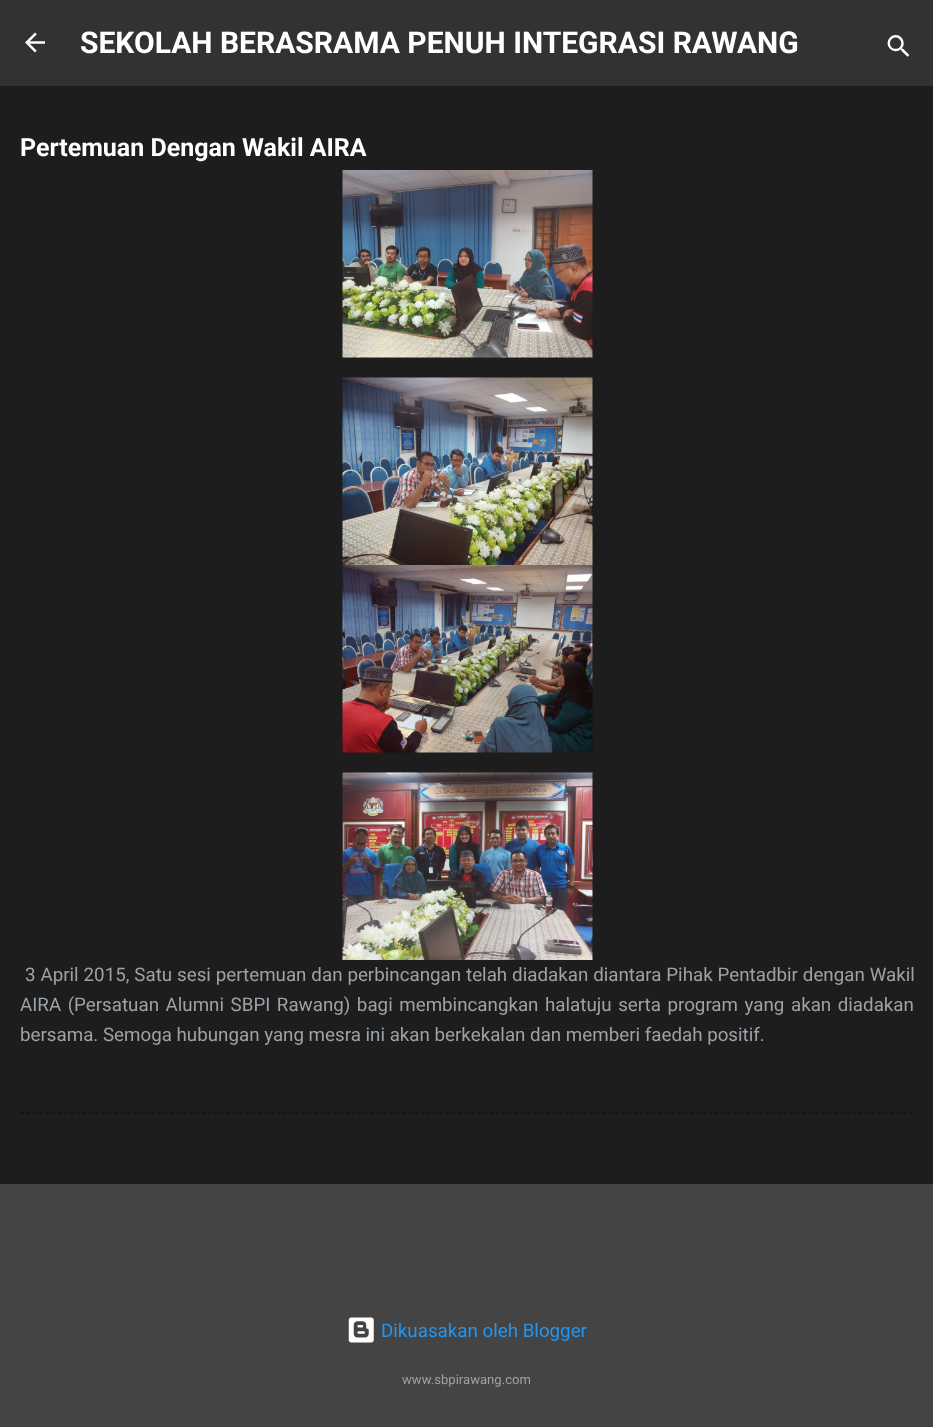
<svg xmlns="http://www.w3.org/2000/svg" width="933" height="1427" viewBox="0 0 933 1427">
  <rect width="100%" height="100%" fill="#444444"/>
  <rect x="0" y="0" width="933" height="86" fill="#323232"/>
  <image x="25" y="32" width="20" height="21" href="img1.png"/>
  <text x="80" y="53" font-family="Roboto" font-size="30" font-weight="bold" fill="#ffffff">SEKOLAH BERASRAMA PENUH INTEGRASI RAWANG</text>
  <image x="887" y="35" width="23" height="22" href="img2.png"/>
  <rect x="0" y="86" width="933" height="1098" fill="#1d1d1d"/>
  <text x="20" y="156" font-family="Roboto" font-size="25" font-weight="bold" fill="#ffffff">Pertemuan Dengan Wakil AIRA</text>
  <image x="342" y="170" width="251" height="188" href="img3.png"/>
  <image x="342" y="377" width="251" height="188" href="img4.png"/>
  <image x="342" y="565" width="251" height="188" href="img5.png"/>
  <image x="342" y="772" width="251" height="188" href="img6.png"/>
  <text x="25" y="981" word-spacing="0.25" font-family="Roboto" font-size="18.75" fill="#9ba2a8">3 April 2015, Satu sesi pertemuan dan perbincangan telah diadakan diantara Pihak Pentadbir dengan Wakil</text>
  <text x="20" y="1011" word-spacing="1.9" font-family="Roboto" font-size="18.75" fill="#9ba2a8">AIRA (Persatuan Alumni SBPI Rawang) bagi membincangkan halatuju serta program yang akan diadakan</text>
  <text x="20" y="1041" font-family="Roboto" font-size="18.75" fill="#9ba2a8">bersama. Semoga hubungan yang mesra ini akan berkekalan dan memberi faedah positif.</text>
  <path d="M20 1113H914" fill="none" stroke="#0d0d0d" stroke-width="1.2" stroke-dasharray="3.75 2.51"/>
  <image x="348" y="1317" width="26" height="26" href="img7.png"/>
  <text x="381" y="1337" font-family="Roboto" font-size="18.75" fill="#2196f3">Dikuasakan oleh Blogger</text>
  <text x="402" y="1384" font-family="Roboto" font-size="13.1" fill="#9ba2a8">www.sbpirawang.com</text>
</svg>
